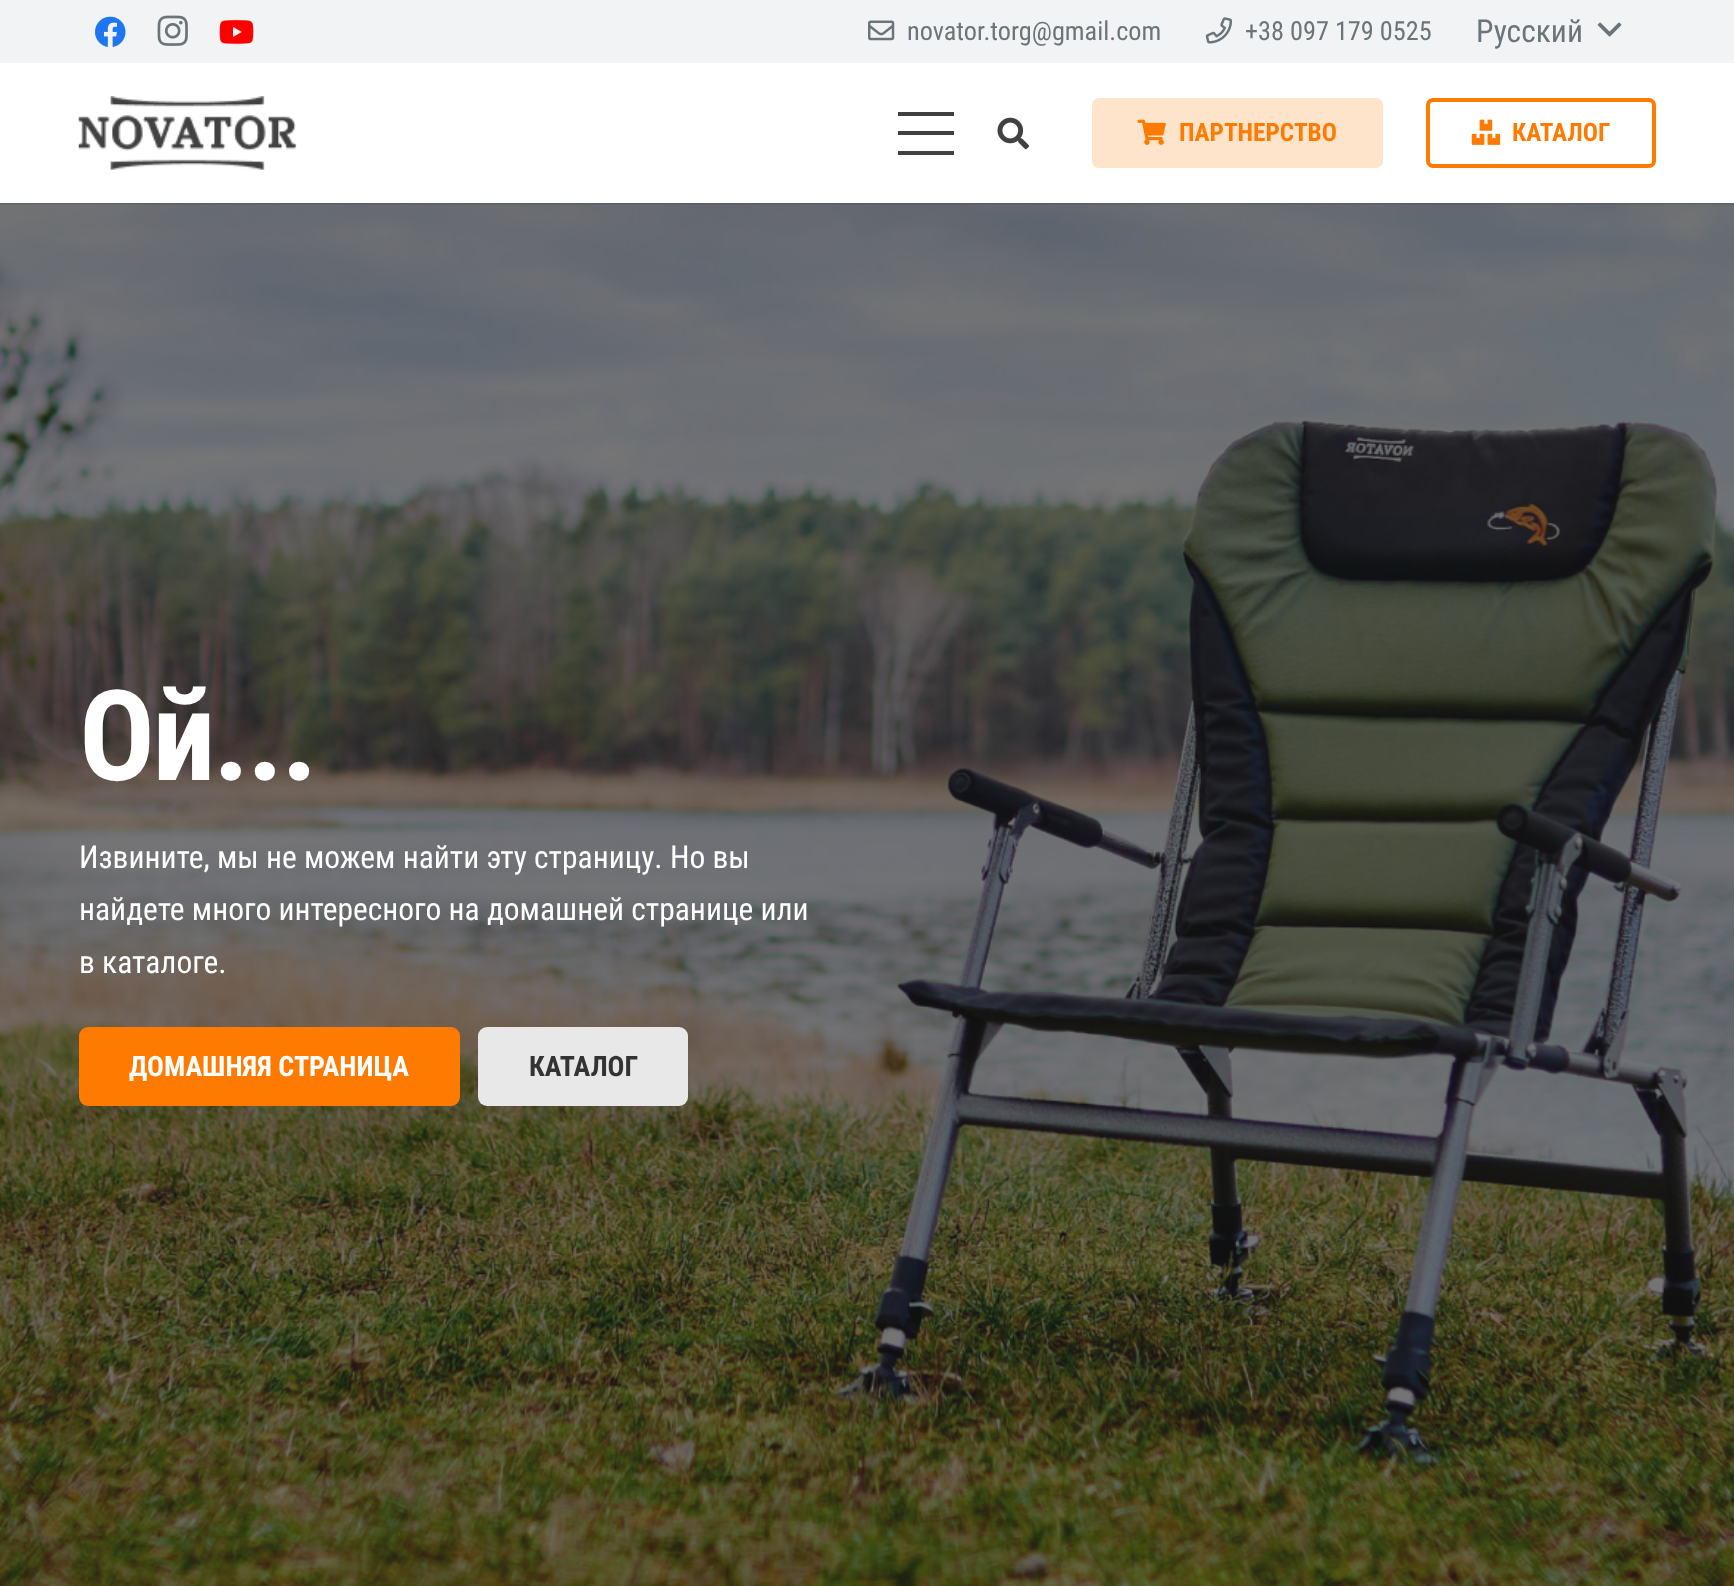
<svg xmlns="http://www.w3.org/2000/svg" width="1734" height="1586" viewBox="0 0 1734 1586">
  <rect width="100%" height="100%" fill="#ffffff"/>
  <rect x="0" y="0" width="1734" height="63" fill="#f2f3f5"/>
  <image x="95" y="16" width="31" height="31" href="img1.png"/>
  <image x="157" y="15" width="31" height="31" href="img2.png"/>
  <image x="219" y="20" width="35" height="24" href="img3.png"/>
  <image x="868" y="20" width="27" height="21" href="img4.png"/>
  <text x="907" y="40" font-family="Roboto Condensed" font-size="26.25" fill="#6b7479">novator.torg@gmail.com</text>
  <image x="1205" y="17" width="27" height="27" href="img5.png"/>
  <text x="1245" y="40" font-family="Roboto Condensed" font-size="26.25" fill="#6b7479">+38 097 179 0525</text>
  <text x="1476" y="42" font-family="Roboto Condensed" font-size="31.5" fill="#6b7479">Русский</text>
  <image x="1597" y="22" width="25" height="15" href="img6.png"/>
  <image x="0" y="203" width="1734" height="1383" href="img11.png"/>
  <rect x="0" y="203" width="1734" height="2" fill="#000000" fill-opacity="0.08"/>
  <image x="78" y="96" width="219" height="74" href="img7.png"/>
  <rect x="898" y="131" width="56" height="4" fill="#414141"/>
  <rect x="898" y="112" width="56" height="4" fill="#414141"/>
  <rect x="898" y="151" width="56" height="4" fill="#414141"/>
  <image x="997" y="117" width="32" height="33" href="img8.png"/>
  <rect x="1092" y="98" width="291" height="70" rx="7" fill="#ffe4cc"/>
  <image x="1137" y="119" width="29" height="26" href="img9.png"/>
  <text x="1179" y="141" font-family="Roboto Condensed" font-size="25.25" font-weight="bold" fill="#ff7a00">ПАРТНЕРСТВО</text>
  <image x="1471" y="119" width="30" height="26" href="img10.png"/>
  <rect x="1428" y="100" width="226" height="66" rx="5" fill="none" stroke="#ff7a00" stroke-width="4"/>
  <text x="1512" y="141" font-family="Roboto Condensed" font-size="25.25" font-weight="bold" fill="#ff7a00">КАТАЛОГ</text>
  <text x="79" y="780" font-family="Roboto Condensed" font-size="126" font-weight="bold" letter-spacing="-2.5" fill="#ffffff">Ой</text>
  <text x="213" y="780" font-family="Roboto Condensed" font-size="126" font-weight="bold" letter-spacing="-2.5" fill="#ffffff">...</text>
  <text x="79" y="868" font-family="Roboto Condensed" font-size="31.5" fill="#ffffff">Извините, мы не можем найти эту страницу. Но вы</text>
  <text x="79" y="920" font-family="Roboto Condensed" font-size="31.5" fill="#ffffff">найдете много интересного на домашней странице или</text>
  <text x="79" y="973" font-family="Roboto Condensed" font-size="31.5" fill="#ffffff">в каталоге.</text>
  <rect x="79" y="1027" width="381" height="79" rx="9" fill="#ff7a00"/>
  <text x="129" y="1076" font-family="Roboto Condensed" font-size="28" font-weight="bold" fill="#ffffff">ДОМАШНЯЯ СТРАНИЦА</text>
  <rect x="478" y="1027" width="210" height="79" rx="9" fill="#e8e8e8"/>
  <text x="529" y="1076" font-family="Roboto Condensed" font-size="28" font-weight="bold" fill="#333333">КАТАЛОГ</text>
</svg>
